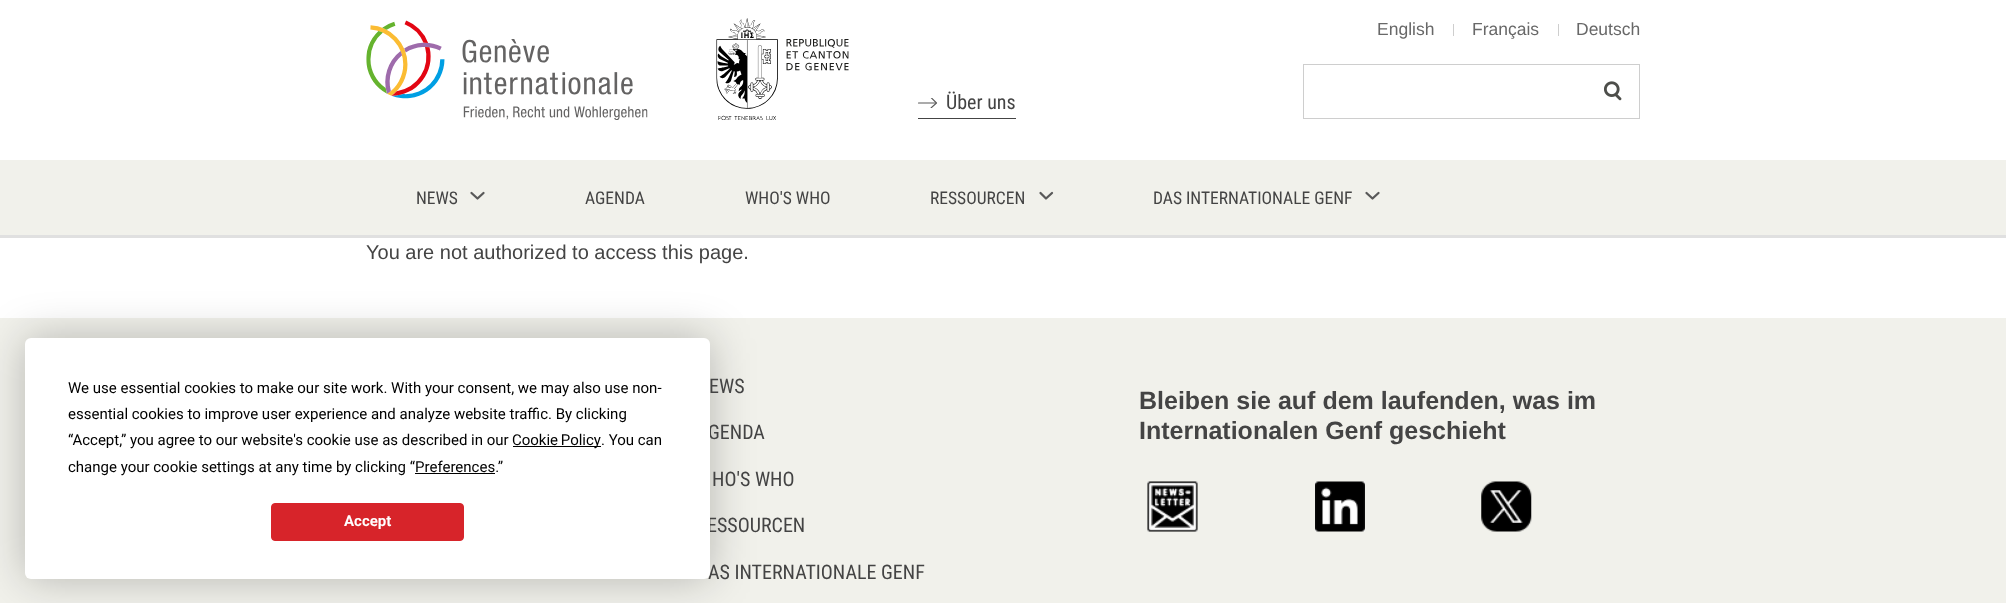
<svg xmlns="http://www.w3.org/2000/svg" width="2006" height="603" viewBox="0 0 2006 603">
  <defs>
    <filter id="blur1" x="-50%" y="-200%" width="200%" height="500%"><feGaussianBlur stdDeviation="22"/></filter>
    <clipPath id="clip1"><rect x="918" y="98" width="20" height="10"/></clipPath>
  </defs>
  <rect width="100%" height="100%" fill="#ffffff"/>
  <rect x="0" y="318" width="2006" height="285" fill="#f1f1eb"/>
  <rect x="25" y="338" width="685" height="241" rx="6" fill="#000000" fill-opacity="0.25" filter="url(#blur1)"/>
  <text x="708" y="439" font-family="Roboto Condensed" font-size="20" fill="#444444">GENDA</text>
  <text x="707" y="532" font-family="Roboto Condensed" font-size="20" fill="#444444">ESSOURCEN</text>
  <text x="708" y="579" font-family="Roboto Condensed" font-size="20" fill="#444444">AS INTERNATIONALE GENF</text>
  <rect x="25" y="338" width="685" height="241" rx="6" fill="#ffffff"/>
  <text x="68" y="393" font-family="Roboto" font-size="15" fill="#000000">We use essential cookies to make our site work. With your consent, we may also use non-</text>
  <text x="68" y="419" font-family="Roboto" font-size="15" fill="#000000">essential cookies to improve user experience and analyze website traffic. By clicking</text>
  <text x="68" y="445" font-family="Roboto" font-size="15" fill="#000000">“Accept,” you agree to our website's cookie use as described in our</text>
  <rect x="513" y="446" width="88" height="1" fill="#000000"/>
  <text x="512" y="445" word-spacing="-1" font-family="Roboto" font-size="15" fill="#000000">Cookie Policy</text>
  <text x="601" y="445" font-family="Roboto" font-size="15" fill="#000000">. You can</text>
  <text x="68" y="472" font-family="Roboto" font-size="15" fill="#000000">change your cookie settings at any time by clicking “Preferences.”</text>
  <rect x="415" y="473" width="80" height="1" fill="#000000"/>
  <rect x="271.5" y="503.5" width="192" height="37" rx="3.5" fill="#d7242a" stroke="#d7242a"/>
  <text x="344" y="526" font-family="Roboto" font-size="15" font-weight="bold" fill="#ffffff">Accept</text>
  <image x="366" y="20" width="282" height="100" href="img1.png"/>
  <image x="716" y="18" width="133" height="102" href="img2.png"/>
  <text x="1377" y="35" font-family="Liberation Sans" font-size="17.5" fill="#686868">English</text>
  <rect x="1453" y="24" width="1" height="12" fill="#cecece"/>
  <text x="1472" y="35" font-family="Liberation Sans" font-size="17.5" fill="#686868">Français</text>
  <rect x="1558" y="24" width="1" height="12" fill="#cecece"/>
  <text x="1576" y="35" font-family="Liberation Sans" font-size="17.5" fill="#686868">Deutsch</text>
  <rect x="918" y="118" width="98" height="1" fill="#444444"/>
  <g clip-path="url(#clip1)">
    <path d="M931 97.5L936.5 103L931 108" fill="none" stroke="#595959" stroke-width="1.1" stroke-linecap="round" stroke-linejoin="round"/>
  </g>
  <path d="M935.5 103H918.5" fill="none" stroke="#595959" stroke-width="1.1" stroke-linecap="round"/>
  <text x="946" y="109" font-family="Roboto Condensed" font-size="20" fill="#444444">Über uns</text>
  <rect x="1303.5" y="64.5" width="336" height="54" fill="none" stroke="#cecece"/>
  <image x="1604" y="81" width="18" height="20" href="img3.png"/>
  <rect x="0" y="160" width="2006" height="75" fill="#f1f1eb"/>
  <rect x="0" y="235" width="2006" height="3" fill="#e0e0e0"/>
  <text x="416" y="204" font-family="Roboto Condensed" font-size="17.5" fill="#444444">NEWS</text>
  <path d="M483.5 193L477.5 198.5L471.5 193" fill="none" stroke="#595959" stroke-width="2.3" stroke-linecap="round" stroke-linejoin="round"/>
  <text x="585" y="204" font-family="Roboto Condensed" font-size="17.5" fill="#444444">AGENDA</text>
  <text x="745" y="204" font-family="Roboto Condensed" font-size="17.5" fill="#444444">WHO'S WHO</text>
  <text x="930" y="204" font-family="Roboto Condensed" font-size="17.5" fill="#444444">RESSOURCEN</text>
  <path d="M1052 193L1046 198.5L1040.5 193" fill="none" stroke="#595959" stroke-width="2.3" stroke-linecap="round" stroke-linejoin="round"/>
  <text x="1153" y="204" font-family="Roboto Condensed" font-size="17.5" fill="#444444">DAS INTERNATIONALE GENF</text>
  <path d="M1378.5 193L1372.5 198.5L1366.5 193" fill="none" stroke="#595959" stroke-width="2.3" stroke-linecap="round" stroke-linejoin="round"/>
  <text x="366" y="259" font-family="Liberation Sans" font-size="20" fill="#444444">You are not authorized to access this page.</text>
  <text x="709" y="393" font-family="Roboto Condensed" font-size="20" fill="#444444">EWS</text>
  <text x="712" y="486" font-family="Roboto Condensed" font-size="20" fill="#444444">HO'S WHO</text>
  <text x="1139" y="409" font-family="Liberation Sans" font-size="25" font-weight="bold" fill="#444444">Bleiben sie auf dem laufenden, was im</text>
  <text x="1139" y="439" font-family="Liberation Sans" font-size="25" font-weight="bold" fill="#444444">Internationalen Genf geschieht</text>
  <image x="1147" y="481" width="51" height="51" href="img4.png"/>
  <image x="1315" y="481" width="50" height="51" href="img5.png"/>
  <image x="1481" y="481" width="51" height="51" href="img6.png"/>
</svg>
